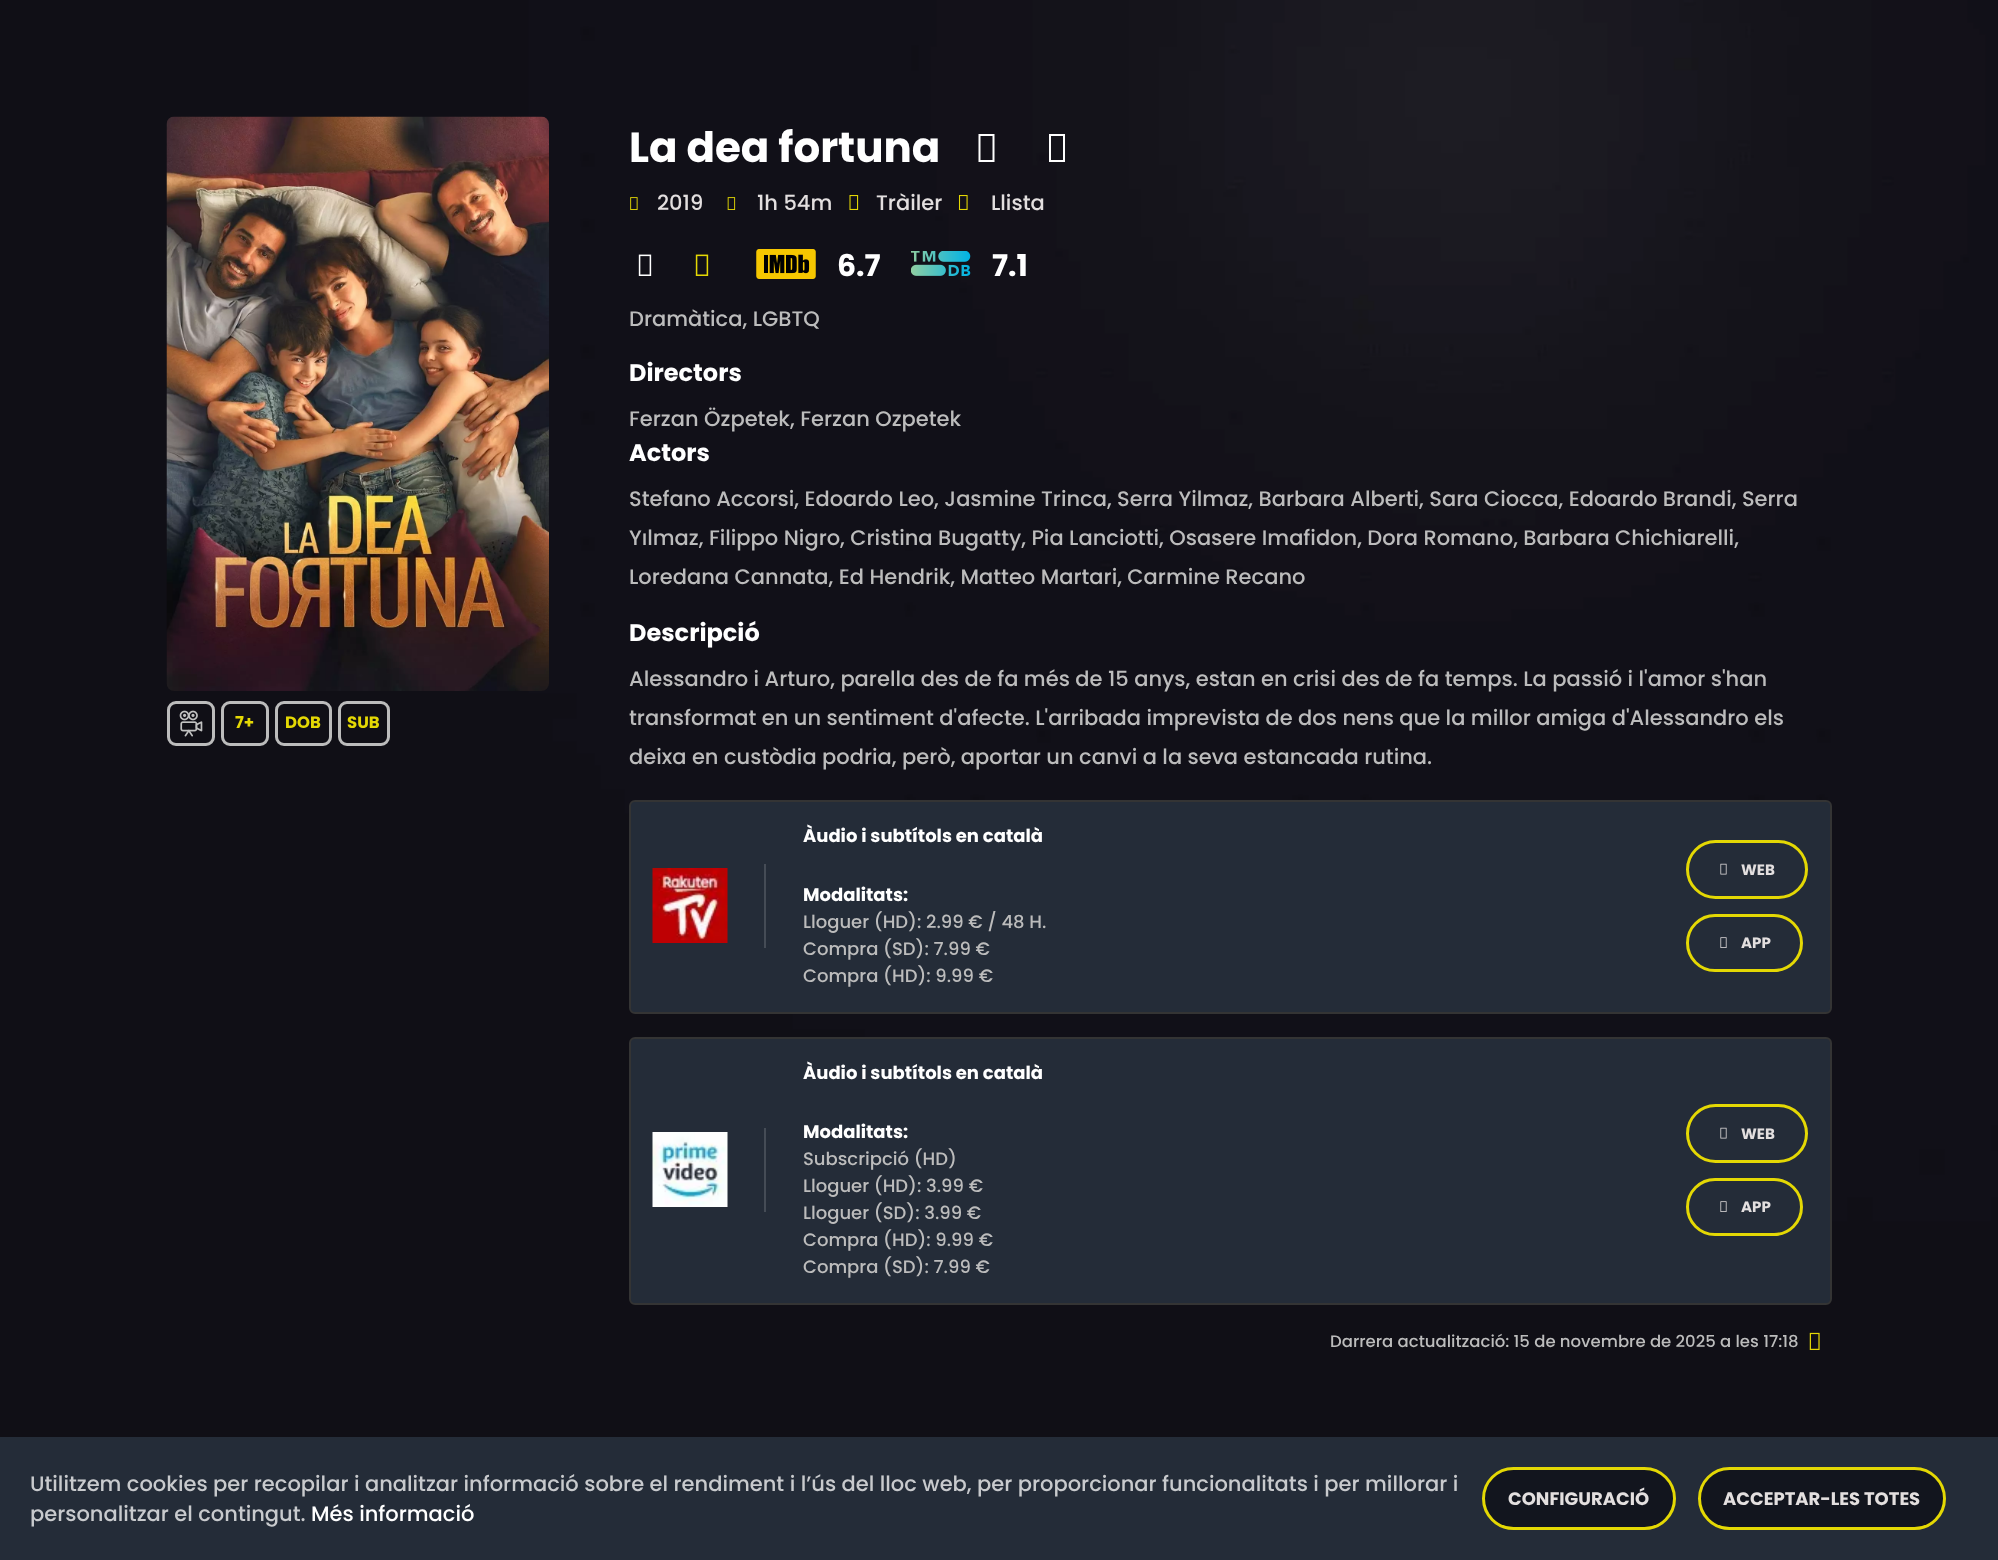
<svg xmlns="http://www.w3.org/2000/svg" width="1998" height="1560" viewBox="0 0 1998 1560">
  <rect width="100%" height="100%" fill="#ffffff"/>
  <image x="0" y="0" width="1998" height="1437" href="img1.png"/>
  <image x="166" y="116" width="383" height="575" href="img2.png"/>
  <rect x="168.5" y="702.5" width="45" height="42" rx="7.5" fill="none" stroke="#bcbcbc" stroke-width="3"/>
  <image x="179" y="710" width="24" height="27" href="img3.png"/>
  <rect x="222.5" y="702.5" width="45" height="42" rx="7.5" fill="none" stroke="#bcbcbc" stroke-width="3"/>
  <text x="235" y="728" font-family="Poppins" font-size="16.5" font-weight="bold" fill="#e4d804">7+</text>
  <rect x="276.5" y="702.5" width="54" height="42" rx="7.5" fill="none" stroke="#bcbcbc" stroke-width="3"/>
  <text x="285" y="728" font-family="Poppins" font-size="16.5" font-weight="bold" fill="#e4d804">DOB</text>
  <rect x="339.5" y="702.5" width="49" height="42" rx="7.5" fill="none" stroke="#bcbcbc" stroke-width="3"/>
  <text x="347" y="728" font-family="Poppins" font-size="16.5" font-weight="bold" fill="#e4d804">SUB</text>
  <text x="629" y="162" font-family="Poppins" font-size="42" font-weight="bold" fill="#ffffff">La dea fortuna</text>
  <path d="M978.5 162V134H994.5V162ZM980.5 160H992.5V136H980.5Z" fill="#ffffff"/>
  <path d="M1049 162V134H1065V162ZM1051 160H1063V136H1051Z" fill="#ffffff"/>
  <image x="630" y="197" width="8" height="13" href="img4.png"/>
  <text x="657" y="210" font-family="Poppins" font-size="21" font-weight="500" fill="#e3dfdf">2019</text>
  <image x="727" y="197" width="9" height="13" href="img5.png"/>
  <text x="757" y="210" font-family="Poppins" font-size="21" font-weight="500" fill="#e3dfdf">1h 54m</text>
  <image x="849" y="195" width="10" height="15" href="img6.png"/>
  <text x="876" y="210" font-family="Poppins" font-size="21" font-weight="500" fill="#e3dfdf">Tràiler</text>
  <image x="958" y="195" width="10" height="15" href="img7.png"/>
  <text x="991" y="210" font-family="Poppins" font-size="21" font-weight="500" fill="#e3dfdf">Llista</text>
  <image x="638" y="254" width="14" height="22" href="img8.png"/>
  <image x="695" y="254" width="14" height="22" href="img9.png"/>
  <image x="756" y="249" width="60" height="30" href="img10.png"/>
  <text x="837" y="276" font-family="Poppins" font-size="30" font-weight="bold" fill="#ffffff">6.7</text>
  <image x="911" y="251" width="60" height="25" href="img11.png"/>
  <text x="992" y="276" font-family="Poppins" font-size="30" font-weight="bold" fill="#ffffff">7.1</text>
  <text x="629" y="326" font-family="Poppins" font-size="21" font-weight="500" fill="#bcbcbc">Dramàtica, LGBTQ</text>
  <text x="629" y="381" font-family="Poppins" font-size="24" font-weight="bold" fill="#ffffff">Directors</text>
  <text x="629" y="426" font-family="Poppins" font-size="21" font-weight="500" fill="#bcbcbc">Ferzan Özpetek, Ferzan Ozpetek</text>
  <text x="629" y="461" font-family="Poppins" font-size="24" font-weight="bold" fill="#ffffff">Actors</text>
  <text x="629" y="506" font-family="Poppins" font-size="21" font-weight="500" fill="#bcbcbc">Stefano Accorsi, Edoardo Leo, Jasmine Trinca, Serra Yilmaz, Barbara Alberti, Sara Ciocca, Edoardo Brandi, Serra</text>
  <text x="629" y="545" font-family="Poppins" font-size="21" font-weight="500" fill="#bcbcbc">Yılmaz, Filippo Nigro, Cristina Bugatty, Pia Lanciotti, Osasere Imafidon, Dora Romano, Barbara Chichiarelli,</text>
  <text x="629" y="584" font-family="Poppins" font-size="21" font-weight="500" fill="#bcbcbc">Loredana Cannata, Ed Hendrik, Matteo Martari, Carmine Recano</text>
  <text x="629" y="641" font-family="Poppins" font-size="24" font-weight="bold" fill="#ffffff">Descripció</text>
  <text x="629" y="686" font-family="Poppins" font-size="21" font-weight="500" fill="#bcbcbc">Alessandro i Arturo, parella des de fa més de 15 anys, estan en crisi des de fa temps. La passió i l'amor s'han</text>
  <text x="629" y="725" font-family="Poppins" font-size="21" font-weight="500" fill="#bcbcbc">transformat en un sentiment d'afecte. L'arribada imprevista de dos nens que la millor amiga d'Alessandro els</text>
  <text x="629" y="764" font-family="Poppins" font-size="21" font-weight="500" fill="#bcbcbc">deixa en custòdia podria, però, aportar un canvi a la seva estancada rutina.</text>
  <rect x="630" y="801" width="1201" height="212" rx="5" fill="#242c38" stroke="#343434" stroke-width="2"/>
  <image x="652" y="868" width="76" height="75" href="img12.png"/>
  <rect x="764" y="864" width="2" height="84" fill="#454c56"/>
  <text x="803" y="842" font-family="Poppins" font-size="18" font-weight="bold" fill="#ffffff">Àudio i subtítols en català</text>
  <text x="803" y="901" font-family="Poppins" font-size="18" font-weight="bold" fill="#ffffff">Modalitats:</text>
  <text x="803" y="928" font-family="Poppins" font-size="18" font-weight="500" fill="#bcbcbc">Lloguer (HD): 2.99 € / 48 H.</text>
  <text x="803" y="955" font-family="Poppins" font-size="18" font-weight="500" fill="#bcbcbc">Compra (SD): 7.99 €</text>
  <text x="803" y="982" font-family="Poppins" font-size="18" font-weight="500" fill="#bcbcbc">Compra (HD): 9.99 €</text>
  <rect x="1687.5" y="841.5" width="119" height="56" rx="28" fill="none" stroke="#e4d804" stroke-width="3"/>
  <image x="1720" y="863" width="7" height="12" href="img13.png"/>
  <text x="1741" y="875" font-family="Poppins" font-size="15" font-weight="bold" fill="#e3dfdf">WEB</text>
  <rect x="1687.5" y="915.5" width="114" height="55" rx="27.5" fill="none" stroke="#e4d804" stroke-width="3"/>
  <image x="1720" y="937" width="7" height="11" href="img14.png"/>
  <text x="1741" y="948" font-family="Poppins" font-size="15" font-weight="bold" fill="#e3dfdf">APP</text>
  <rect x="630" y="1038" width="1201" height="266" rx="5" fill="#242c38" stroke="#343434" stroke-width="2"/>
  <image x="652" y="1132" width="76" height="75" href="img15.png"/>
  <rect x="764" y="1128" width="2" height="84" fill="#454c56"/>
  <text x="803" y="1079" font-family="Poppins" font-size="18" font-weight="bold" fill="#ffffff">Àudio i subtítols en català</text>
  <text x="803" y="1138" font-family="Poppins" font-size="18" font-weight="bold" fill="#ffffff">Modalitats:</text>
  <text x="803" y="1165" font-family="Poppins" font-size="18" font-weight="500" fill="#bcbcbc">Subscripció (HD)</text>
  <text x="803" y="1192" font-family="Poppins" font-size="18" font-weight="500" fill="#bcbcbc">Lloguer (HD): 3.99 €</text>
  <text x="803" y="1219" font-family="Poppins" font-size="18" font-weight="500" fill="#bcbcbc">Lloguer (SD): 3.99 €</text>
  <text x="803" y="1246" font-family="Poppins" font-size="18" font-weight="500" fill="#bcbcbc">Compra (HD): 9.99 €</text>
  <text x="803" y="1273" font-family="Poppins" font-size="18" font-weight="500" fill="#bcbcbc">Compra (SD): 7.99 €</text>
  <rect x="1687.5" y="1105.5" width="119" height="56" rx="28" fill="none" stroke="#e4d804" stroke-width="3"/>
  <image x="1720" y="1127" width="7" height="12" href="img13.png"/>
  <text x="1741" y="1139" font-family="Poppins" font-size="15" font-weight="bold" fill="#e3dfdf">WEB</text>
  <rect x="1687.5" y="1179.5" width="114" height="55" rx="27.5" fill="none" stroke="#e4d804" stroke-width="3"/>
  <image x="1720" y="1201" width="7" height="11" href="img14.png"/>
  <text x="1741" y="1212" font-family="Poppins" font-size="15" font-weight="bold" fill="#e3dfdf">APP</text>
  <text x="1330" y="1347" font-family="Poppins" font-size="16.5" font-weight="500" fill="#bcbcbc">Darrera actualització: 15 de novembre de 2025 a les 17:18</text>
  <image x="1809" y="1332" width="11" height="18" href="img16.png"/>
  <rect x="0" y="1437" width="1998" height="123" fill="#242c38"/>
  <text x="30" y="1491" font-family="Poppins" font-size="21" font-weight="500" fill="#c8cacd">Utilitzem cookies per recopilar i analitzar informació sobre el rendiment i l’ús del lloc web, per proporcionar funcionalitats i per millorar i</text>
  <text x="30" y="1521" font-family="Poppins" font-size="21" font-weight="500" fill="#c8cacd">personalitzar el contingut.</text>
  <text x="311" y="1521" font-family="Poppins" font-size="21" font-weight="500" fill="#ffffff">Més informació</text>
  <rect x="1483.5" y="1468.5" width="191" height="60" rx="30" fill="#12151e" stroke="#e4d804" stroke-width="3"/>
  <text x="1508" y="1505" font-family="Poppins" font-size="18" font-weight="bold" fill="#e3dfdf">CONFIGURACIÓ</text>
  <rect x="1699.5" y="1468.5" width="245" height="60" rx="30" fill="#12151e" stroke="#e4d804" stroke-width="3"/>
  <text x="1723" y="1505" font-family="Poppins" font-size="18" font-weight="bold" fill="#e3dfdf">ACCEPTAR-LES TOTES</text>
</svg>
